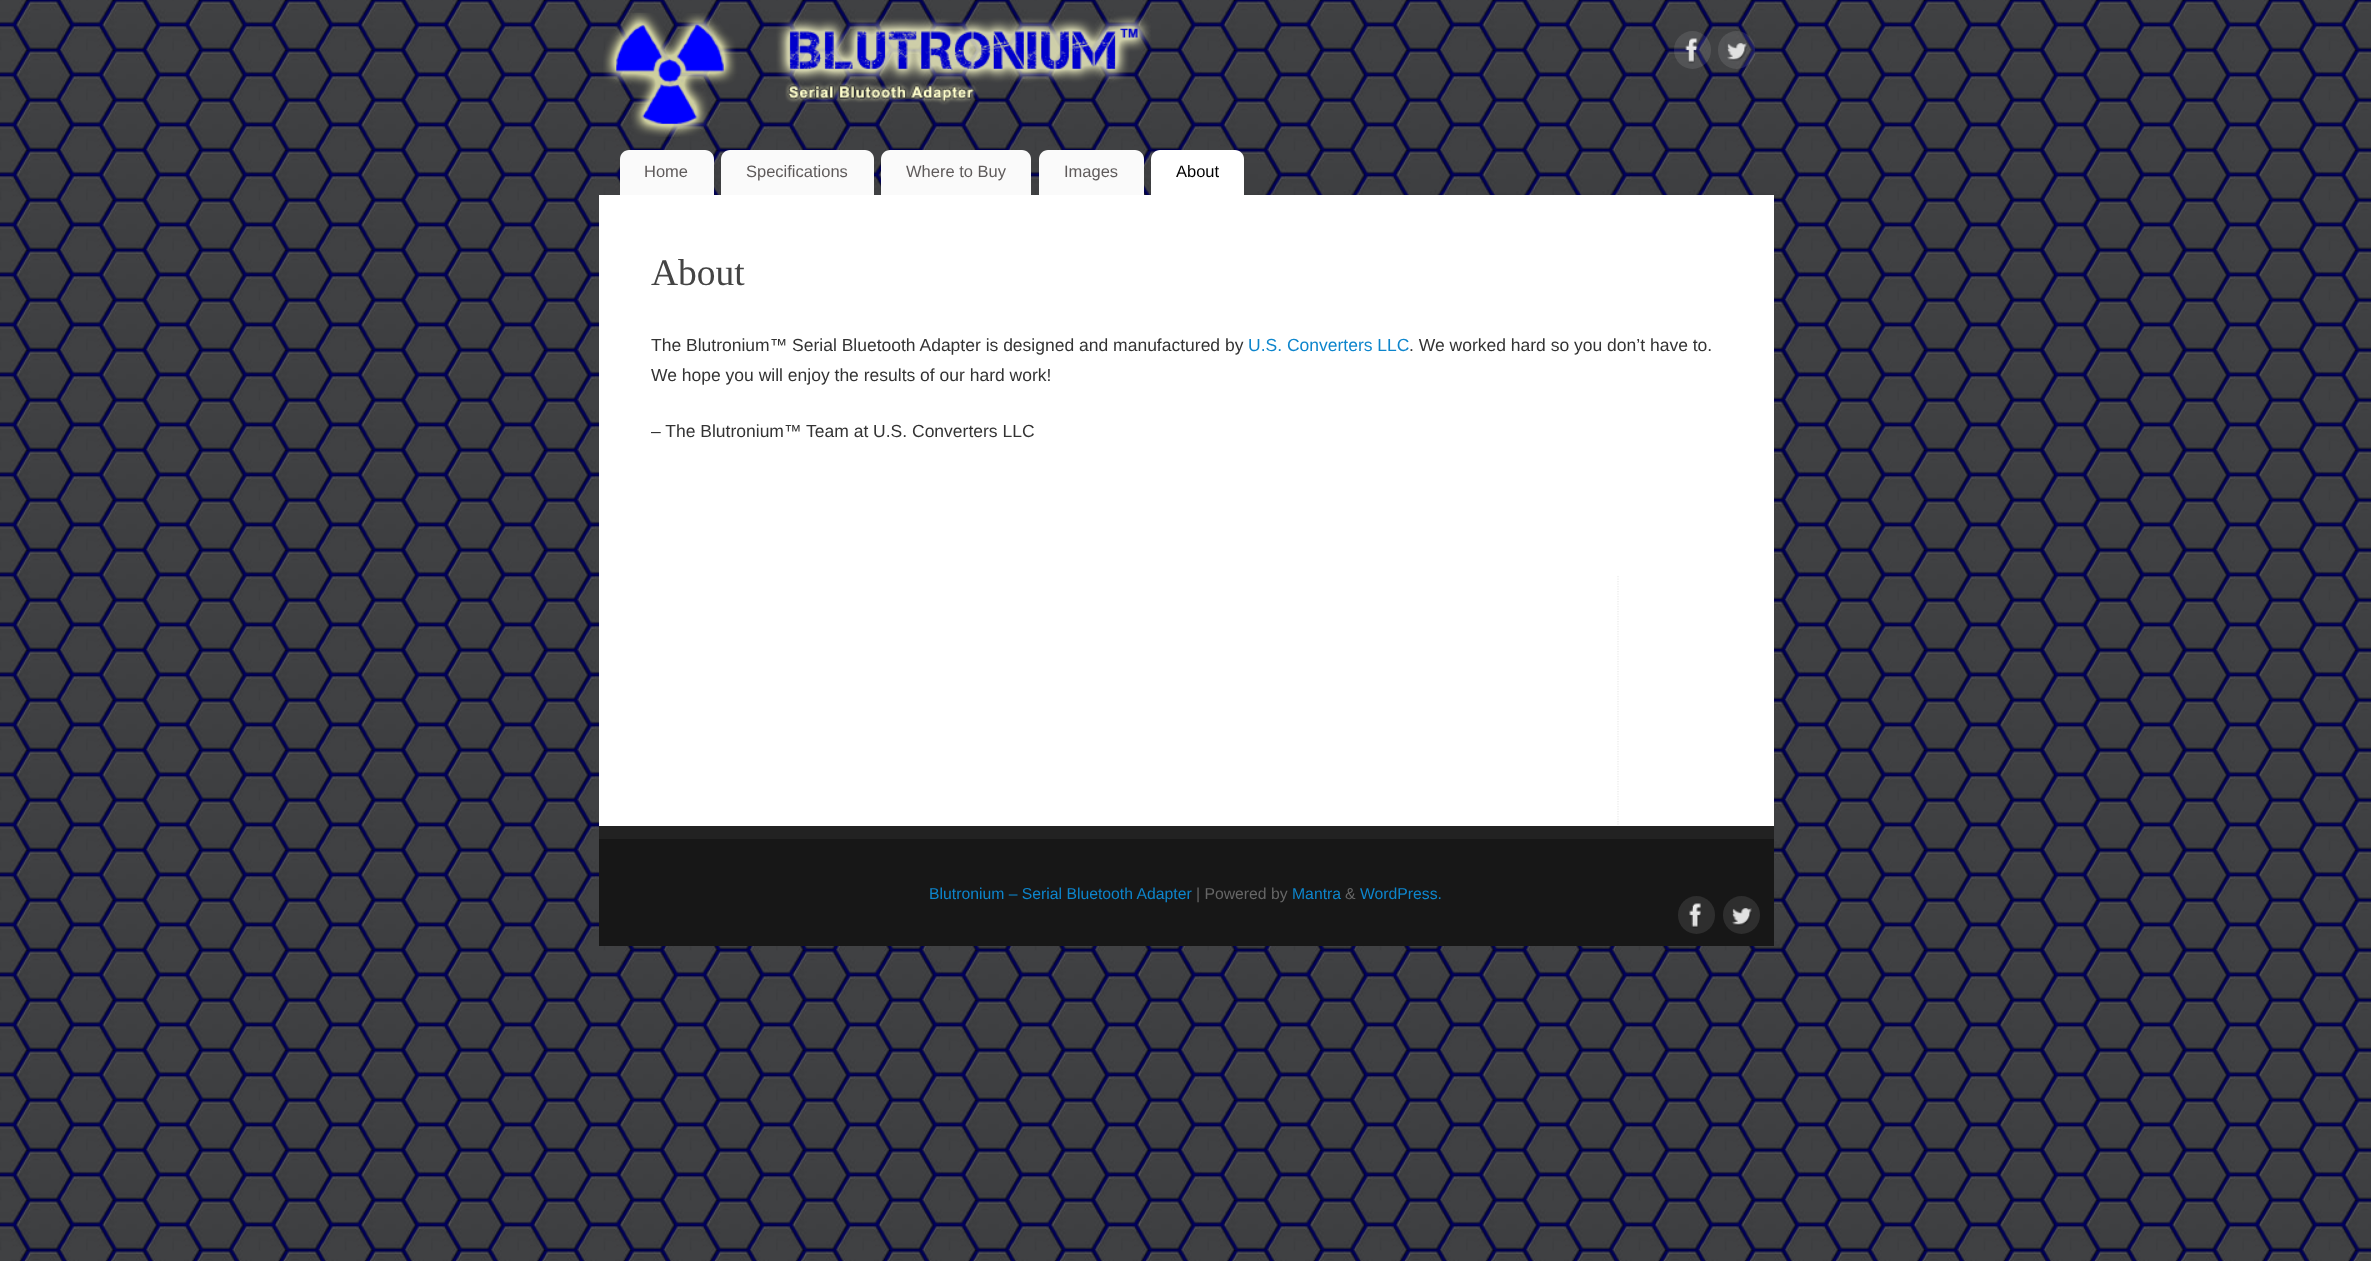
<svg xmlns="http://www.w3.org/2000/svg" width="2371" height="1261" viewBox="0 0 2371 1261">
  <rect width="100%" height="100%" fill="#ffffff"/>
  <image x="0" y="0" width="2371" height="1261" href="img1.png"/>
  <image x="603" y="12" width="548" height="125" href="img2.png"/>
  <rect x="1674" y="31" width="37" height="38" rx="18.5" fill="#ffffff" fill-opacity="0.1"/>
  <image x="1685" y="38" width="13" height="26" href="img3.png"/>
  <rect x="1718" y="31" width="37" height="38" rx="18.5" fill="#ffffff" fill-opacity="0.1"/>
  <image x="1727" y="43" width="21" height="18" href="img4.png"/>
  <path d="M629 150H705C710 150 714 154 714 159V195H620V159C620 154 624 150 629 150Z" fill="#fafafa"/>
  <text x="644" y="177" font-family="Liberation Sans" font-size="16.5" fill="#5f5b5b">Home</text>
  <path d="M730 150H865C870 150 874 154 874 159V195H721V159C721 154 725 150 730 150Z" fill="#fafafa"/>
  <text x="746" y="177" font-family="Liberation Sans" font-size="16.5" fill="#5f5b5b">Specifications</text>
  <path d="M890 150H1022C1027 150 1031 154 1031 159V195H881V159C881 154 885 150 890 150Z" fill="#fafafa"/>
  <text x="906" y="177" font-family="Liberation Sans" font-size="16.5" fill="#5f5b5b">Where to Buy</text>
  <path d="M1048 150H1135C1140 150 1144 154 1144 159V195H1039V159C1039 154 1043 150 1048 150Z" fill="#fafafa"/>
  <text x="1064" y="177" font-family="Liberation Sans" font-size="16.5" fill="#5f5b5b">Images</text>
  <path d="M1160 150H1235C1240 150 1244 154 1244 159V195H1151V159C1151 154 1155 150 1160 150Z" fill="#ffffff"/>
  <text x="1176" y="177" font-family="Liberation Sans" font-size="16.5" fill="#000000">About</text>
  <rect x="599" y="195" width="1175" height="631" fill="#ffffff"/>
  <text x="651" y="285" font-family="Liberation Serif" font-size="37.5" fill="#444444">About</text>
  <text x="651" y="351" font-family="Liberation Sans" font-size="17.5" fill="#333333">The Blutronium™ Serial Bluetooth Adapter is designed and manufactured by</text>
  <text x="1248" y="351" font-family="Liberation Sans" font-size="17.5" fill="#0d85cc">U.S. Converters LLC</text>
  <text x="1409" y="351" font-family="Liberation Sans" font-size="17.5" fill="#333333">. We worked hard so you don’t have to.</text>
  <text x="651" y="381" font-family="Liberation Sans" font-size="17.5" fill="#333333">We hope you will enjoy the results of our hard work!</text>
  <text x="651" y="437" font-family="Liberation Sans" font-size="17.5" fill="#333333">– The Blutronium™ Team at U.S. Converters LLC</text>
  <path d="M1618 576V826" fill="none" stroke="#eaeaea" stroke-width="1.2" stroke-dasharray="1.25 1.25"/>
  <rect x="599" y="826" width="1175" height="13" fill="#222222"/>
  <rect x="599" y="839" width="1175" height="107" fill="#171717"/>
  <text x="929" y="899" font-family="Liberation Sans" font-size="15.75" fill="#0d85cc">Blutronium – Serial Bluetooth Adapter</text>
  <text x="1196" y="899" font-family="Liberation Sans" font-size="15.75" fill="#666666">| Powered by</text>
  <text x="1292" y="899" font-family="Liberation Sans" font-size="15.75" fill="#0d85cc">Mantra</text>
  <text x="1345" y="899" font-family="Liberation Sans" font-size="15.75" fill="#666666">&amp;</text>
  <text x="1360" y="899" font-family="Liberation Sans" font-size="15.75" fill="#0d85cc">WordPress.</text>
  <rect x="1678" y="896" width="37" height="38" rx="18.5" fill="#2e2e2e"/>
  <image x="1689" y="903" width="12" height="25" href="img5.png"/>
  <rect x="1723" y="896" width="37" height="38" rx="18.5" fill="#2e2e2e"/>
  <image x="1732" y="908" width="20" height="18" href="img6.png"/>
</svg>
